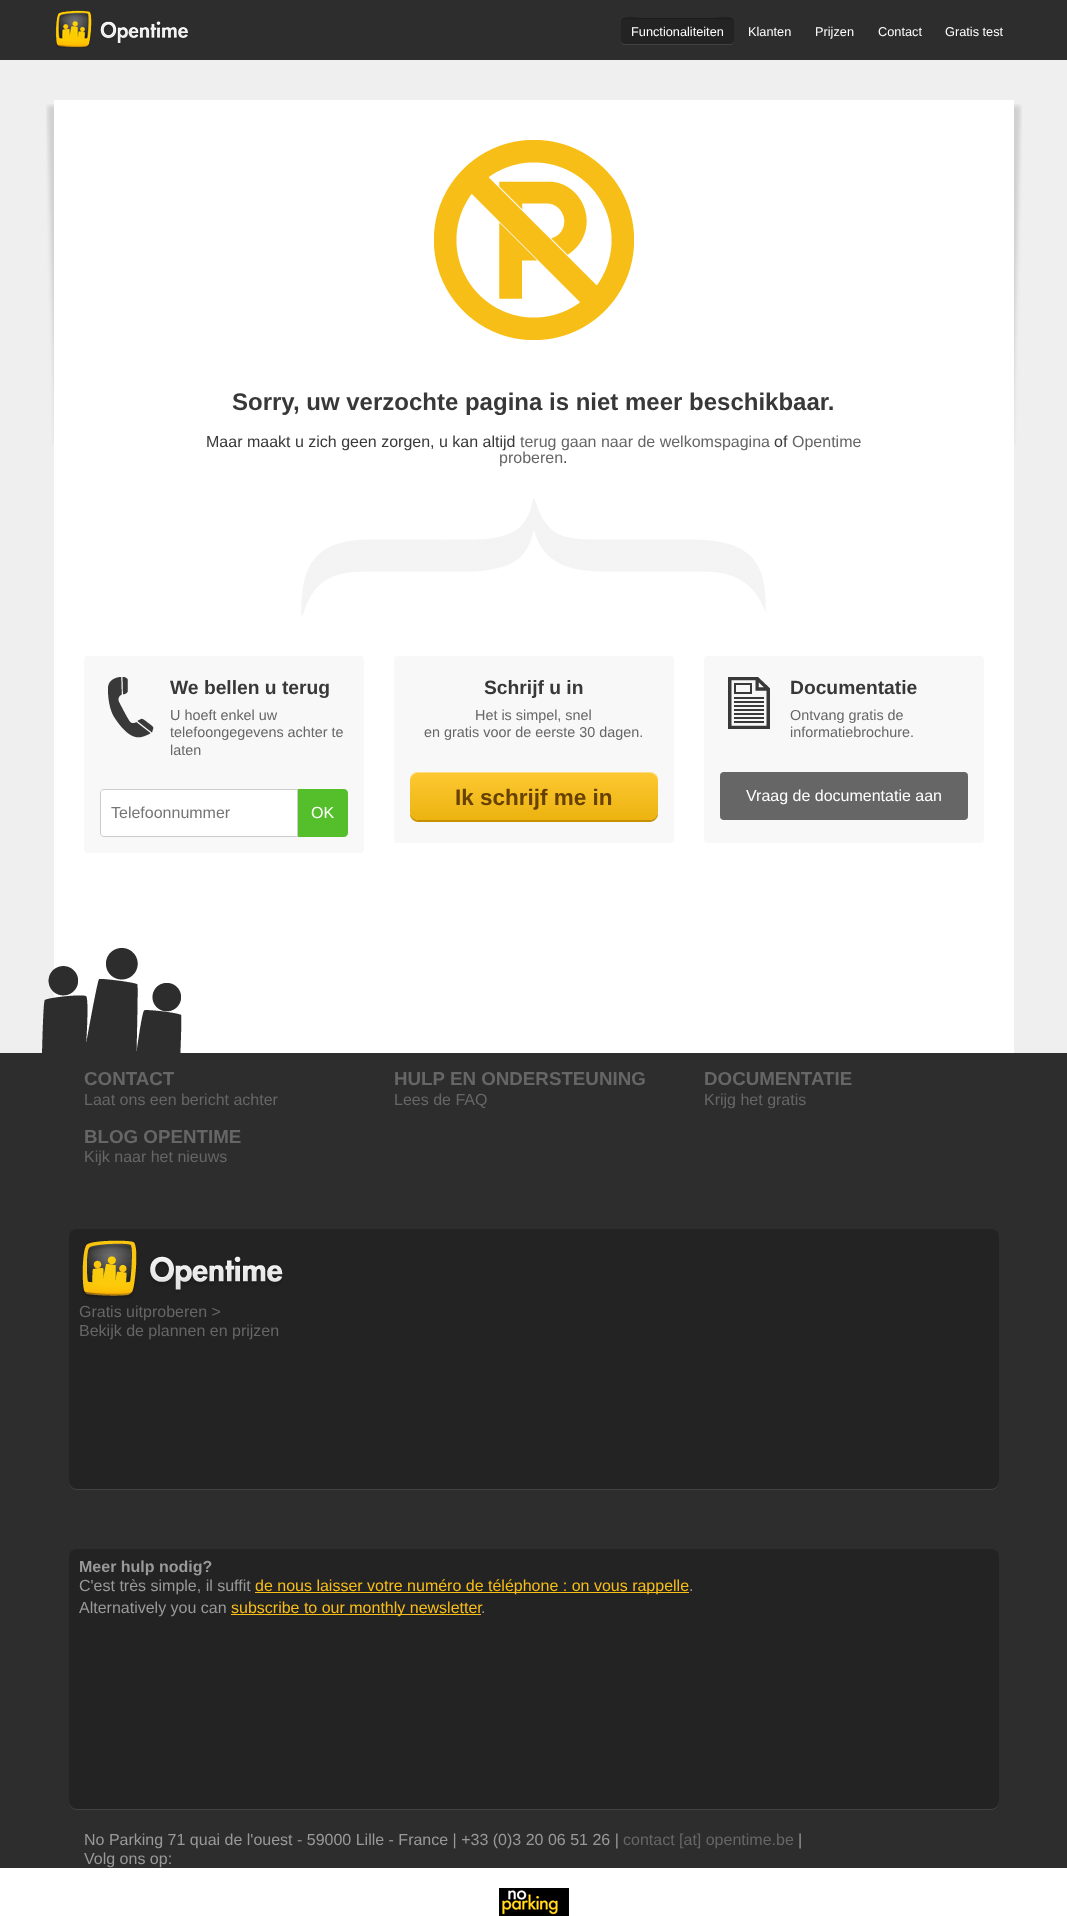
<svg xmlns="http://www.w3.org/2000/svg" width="1067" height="1916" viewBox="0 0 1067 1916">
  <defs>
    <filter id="blur1" x="-50%" y="-200%" width="200%" height="500%"><feGaussianBlur stdDeviation="0.5"/></filter>
    <linearGradient id="g1" gradientUnits="userSpaceOnUse" x1="410" y1="772" x2="410" y2="820"><stop offset="0" stop-color="#fdc832"/><stop offset="1" stop-color="#ecb310"/></linearGradient>
  </defs>
  <rect width="100%" height="100%" fill="#ffffff"/>
  <rect x="0" y="0" width="1067" height="60" fill="#2d2d2d"/>
  <image x="55" y="10" width="134" height="38" href="img1.png"/>
  <rect x="621" y="19" width="113" height="26" rx="4" fill="#ffffff" fill-opacity="0.1" filter="url(#blur1)"/>
  <rect x="621" y="18" width="113" height="26" rx="4" fill="#232323"/>
  <path d="M625 19H730C732 19 734 21 734 23C734 13 716 18 712 18H642C639 18 621 13 621 23C621 21 623 19 625 19Z" fill="#000000" fill-opacity="0.2"/>
  <text x="631" y="36" font-family="Liberation Sans" font-size="12.75" fill="#ffffff">Functionaliteiten</text>
  <text x="748" y="36" font-family="Liberation Sans" font-size="12.75" fill="#ffffff">Klanten</text>
  <text x="815" y="36" font-family="Liberation Sans" font-size="12.75" fill="#ffffff">Prijzen</text>
  <text x="878" y="36" font-family="Liberation Sans" font-size="12.75" fill="#ffffff">Contact</text>
  <text x="945" y="36" font-family="Liberation Sans" font-size="12.75" fill="#ffffff">Gratis test</text>
  <rect x="0" y="60" width="1067" height="993" fill="#efefef"/>
  <image x="46" y="104" width="976" height="341" href="img2.png"/>
  <rect x="54" y="100" width="960" height="953" fill="#ffffff"/>
  <image x="434" y="140" width="200" height="200" href="img3.png"/>
  <text x="232" y="410" font-family="Liberation Sans" font-size="24" font-weight="bold" fill="#383838">Sorry, uw verzochte pagina is niet meer beschikbaar.</text>
  <image x="301" y="498" width="465" height="118" href="img4.png"/>
  <text x="206" y="447" font-family="Liberation Sans" font-size="16" fill="#383838">Maar maakt u zich geen zorgen, u kan altijd</text>
  <text x="520" y="447" font-family="Liberation Sans" font-size="16" fill="#666666">terug gaan naar de welkomspagina</text>
  <text x="774" y="447" font-family="Liberation Sans" font-size="16" fill="#383838">of</text>
  <text x="792" y="447" font-family="Liberation Sans" font-size="16" fill="#666666">Opentime</text>
  <text x="499" y="463" font-family="Liberation Sans" font-size="16" fill="#666666">proberen</text>
  <text x="563" y="463" font-family="Liberation Sans" font-size="16" fill="#383838">.</text>
  <rect x="84" y="656" width="280" height="197" rx="4" fill="#f8f8f8"/>
  <image x="108" y="677" width="46" height="61" href="img5.png"/>
  <text x="170" y="694" font-family="Liberation Sans" font-size="19.25" font-weight="bold" fill="#383838">We bellen u terug</text>
  <text x="170" y="720" font-family="Liberation Sans" font-size="14.4" fill="#666666">U hoeft enkel uw</text>
  <text x="170" y="737" font-family="Liberation Sans" font-size="14.4" fill="#666666">telefoongegevens achter te</text>
  <text x="170" y="755" font-family="Liberation Sans" font-size="14.4" fill="#666666">laten</text>
  <path d="M104 789.5H297.5V836.5H104C102 836.5 100.5 835 100.5 833V793C100.5 791 102 789.5 104 789.5Z" fill="#ffffff" stroke="#cccccc"/>
  <text x="111" y="818" font-family="Liberation Sans" font-size="16" fill="#757575">Telefoonnummer</text>
  <path d="M298 789H344C346 789 348 791 348 793V833C348 835 346 837 344 837H298Z" fill="#55bf2b"/>
  <text x="311" y="818" font-family="Liberation Sans" font-size="16" fill="#ffffff">OK</text>
  <rect x="394" y="656" width="280" height="187" rx="4" fill="#f8f8f8"/>
  <text x="484" y="694" font-family="Liberation Sans" font-size="19.25" font-weight="bold" fill="#383838">Schrijf u in</text>
  <text x="475" y="720" font-family="Liberation Sans" font-size="14.4" fill="#666666">Het is simpel, snel</text>
  <text x="424" y="737" font-family="Liberation Sans" font-size="14.4" fill="#666666">en gratis voor de eerste 30 dagen.</text>
  <path d="M410 812V814C410 818 414 822 418 822H650C654 822 658 818 658 814V812C658 816 654 820 650 820H418C414 820 410 816 410 812Z" fill="#c59100"/>
  <path d="M410 812C410 816 412 820 416 821H650L654 820C657 818 658 815 658 812C658 816 654 820 650 820H418C414 820 410 816 410 812Z" fill="#c59100"/>
  <rect x="410" y="772" width="248" height="48" rx="8" fill="url(#g1)"/>
  <path d="M418 773H650C654 773 658 777 658 781C658 777 656 773 652 772H418L414 773C411 775 410 778 410 781C410 777 414 773 418 773Z" fill="#ffffff" fill-opacity="0.4"/>
  <text x="455" y="805" font-family="Liberation Sans" font-size="22.5" font-weight="bold" fill="#664100">Ik schrijf me in</text>
  <rect x="704" y="656" width="280" height="187" rx="4" fill="#f8f8f8"/>
  <image x="728" y="677" width="42" height="52" href="img6.png"/>
  <text x="790" y="694" font-family="Liberation Sans" font-size="19.25" font-weight="bold" fill="#383838">Documentatie</text>
  <text x="790" y="720" font-family="Liberation Sans" font-size="14.4" fill="#666666">Ontvang gratis de</text>
  <text x="790" y="737" font-family="Liberation Sans" font-size="14.4" fill="#666666">informatiebrochure.</text>
  <rect x="720" y="772" width="248" height="48" rx="4" fill="#666666"/>
  <text x="746" y="801" font-family="Liberation Sans" font-size="16" fill="#ffffff">Vraag de documentatie aan</text>
  <rect x="0" y="1053" width="1067" height="815" fill="#2d2d2d"/>
  <image x="42" y="948" width="140" height="105" href="img7.png"/>
  <text x="84" y="1085" font-family="Liberation Sans" font-size="18.75" font-weight="bold" fill="#666666">CONTACT</text>
  <text x="84" y="1105" font-family="Liberation Sans" font-size="16" fill="#666666">Laat ons een bericht achter</text>
  <text x="394" y="1085" font-family="Liberation Sans" font-size="18.75" font-weight="bold" fill="#666666">HULP EN ONDERSTEUNING</text>
  <text x="394" y="1105" font-family="Liberation Sans" font-size="16" fill="#666666">Lees de FAQ</text>
  <text x="704" y="1085" font-family="Liberation Sans" font-size="18.75" font-weight="bold" fill="#666666">DOCUMENTATIE</text>
  <text x="704" y="1105" font-family="Liberation Sans" font-size="16" fill="#666666">Krijg het gratis</text>
  <text x="84" y="1143" font-family="Liberation Sans" font-size="18.75" font-weight="bold" fill="#666666">BLOG OPENTIME</text>
  <text x="84" y="1162" font-family="Liberation Sans" font-size="16" fill="#666666">Kijk naar het nieuws</text>
  <rect x="69" y="1230" width="930" height="260" rx="8" fill="#ffffff" fill-opacity="0.1" filter="url(#blur1)"/>
  <rect x="69" y="1229" width="930" height="260" rx="8" fill="#232323"/>
  <image x="82" y="1240" width="201" height="58" href="img8.png"/>
  <text x="79" y="1317" font-family="Liberation Sans" font-size="16" fill="#666666">Gratis uitproberen &gt;</text>
  <text x="79" y="1336" font-family="Liberation Sans" font-size="16" fill="#666666">Bekijk de plannen en prijzen</text>
  <rect x="69" y="1550" width="930" height="260" rx="8" fill="#ffffff" fill-opacity="0.1" filter="url(#blur1)"/>
  <rect x="69" y="1549" width="930" height="260" rx="8" fill="#232323"/>
  <text x="79" y="1572" font-family="Liberation Sans" font-size="16" font-weight="bold" fill="#999999">Meer hulp nodig?</text>
  <text x="79" y="1591" font-family="Liberation Sans" font-size="16" fill="#999999">C'est très simple, il suffit</text>
  <rect x="255" y="1592" width="434" height="1" fill="#f8be18"/>
  <text x="255" y="1591" font-family="Liberation Sans" font-size="16" fill="#f8be18">de nous laisser votre numéro de téléphone : on vous rappelle</text>
  <text x="689" y="1591" font-family="Liberation Sans" font-size="16" fill="#999999">.</text>
  <text x="79" y="1613" font-family="Liberation Sans" font-size="16" fill="#999999">Alternatively you can</text>
  <rect x="231" y="1614" width="250" height="1" fill="#f8be18"/>
  <text x="231" y="1613" font-family="Liberation Sans" font-size="16" fill="#f8be18">subscribe to our monthly newsletter</text>
  <text x="481" y="1613" font-family="Liberation Sans" font-size="16" fill="#999999">.</text>
  <text x="84" y="1845" font-family="Liberation Sans" font-size="16" fill="#999999">No Parking 71 quai de l'ouest - 59000 Lille - France | +33 (0)3 20 06 51 26 |</text>
  <text x="623" y="1845" font-family="Liberation Sans" font-size="16" fill="#666666">contact [at] opentime.be</text>
  <text x="798" y="1845" font-family="Liberation Sans" font-size="16" fill="#999999">|</text>
  <text x="84" y="1864" font-family="Liberation Sans" font-size="16" fill="#999999">Volg ons op:</text>
  <image x="499" y="1888" width="70" height="28" href="img9.png"/>
</svg>
